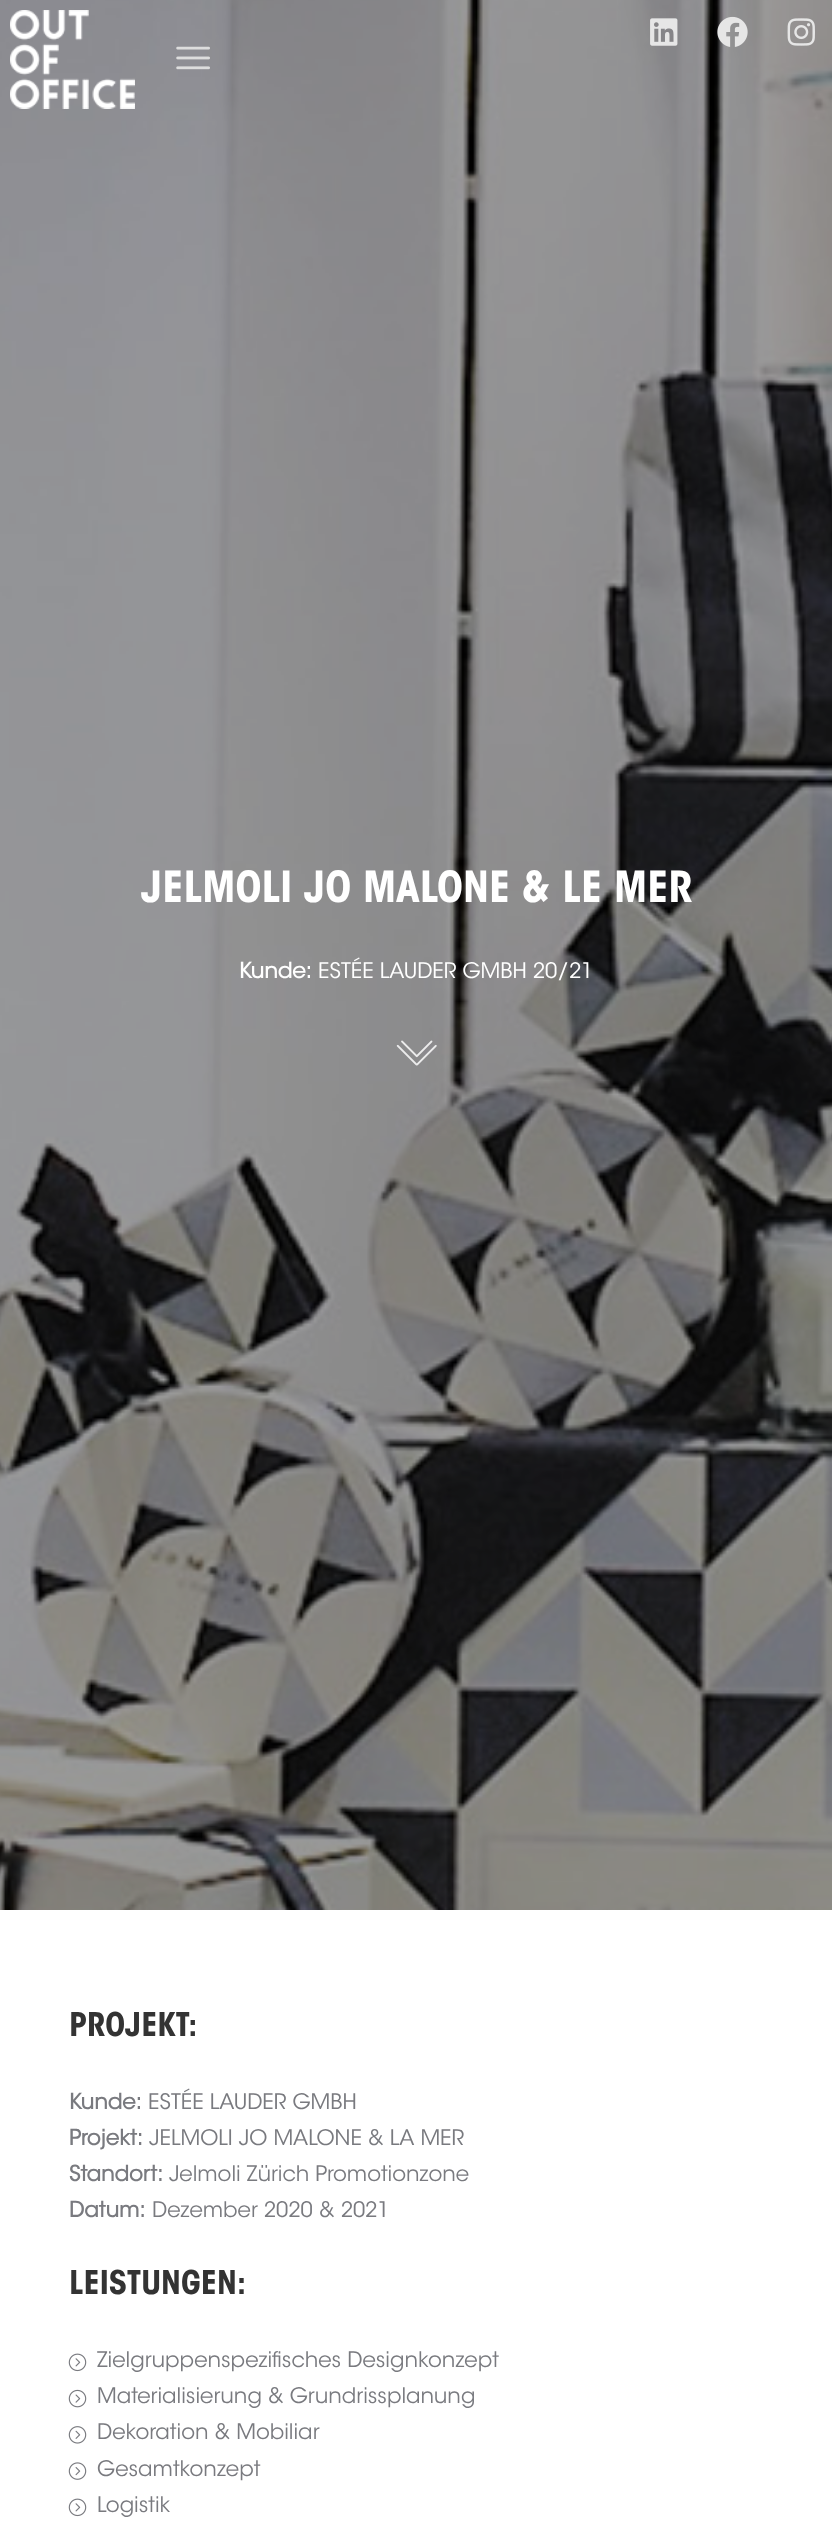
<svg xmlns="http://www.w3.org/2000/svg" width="832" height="2546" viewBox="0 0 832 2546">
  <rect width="100%" height="100%" fill="#ffffff"/>
  <image x="0" y="0" width="832" height="1910" href="img6.png"/>
  <image x="10" y="10" width="125" height="99" href="img1.png"/>
  <image x="176" y="46" width="34" height="24" href="img2.png"/>
  <image x="650" y="18" width="28" height="28" href="img3.png"/>
  <image x="717" y="16" width="31" height="31" href="img4.png"/>
  <image x="787" y="18" width="28" height="28" href="img5.png"/>
  <text x="141" y="902" font-family="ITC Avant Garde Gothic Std" font-size="42.5" font-weight="bold" fill="#ffffff">JELMOLI JO MALONE &amp; LE MER</text>
  <text x="239" y="978" font-family="'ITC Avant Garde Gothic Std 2'" font-size="21.25" font-weight="bold" fill="#ffffff">Kunde:</text>
  <text x="318" y="978" font-family="ITC Avant Garde Gothic Std" font-size="21.25" font-weight="300" fill="#ffffff">ESTÉE LAUDER GMBH 20/21</text>
  <image x="396" y="1040" width="41" height="26" href="img7.png"/>
  <text x="69" y="2036" font-family="ITC Avant Garde Gothic Std" font-size="32.5" font-weight="bold" fill="#333333">PROJEKT:</text>
  <text x="69" y="2109" font-family="'ITC Avant Garde Gothic Std 2'" font-size="21.25" font-weight="bold" fill="#797a7f">Kunde:</text>
  <text x="148" y="2109" font-family="ITC Avant Garde Gothic Std" font-size="21.25" font-weight="300" fill="#797a7f">ESTÉE LAUDER GMBH</text>
  <text x="69" y="2145" font-family="'ITC Avant Garde Gothic Std 2'" font-size="21.25" font-weight="bold" fill="#797a7f">Projekt:</text>
  <text x="149" y="2145" font-family="ITC Avant Garde Gothic Std" font-size="21.25" font-weight="300" fill="#797a7f">JELMOLI JO MALONE &amp; LA MER</text>
  <text x="69" y="2181" font-family="'ITC Avant Garde Gothic Std 2'" font-size="21.25" font-weight="bold" fill="#797a7f">Standort:</text>
  <text x="169" y="2181" font-family="ITC Avant Garde Gothic Std" font-size="21.25" font-weight="300" fill="#797a7f">Jelmoli Zürich Promotionzone</text>
  <text x="69" y="2217" font-family="'ITC Avant Garde Gothic Std 2'" font-size="21.25" font-weight="bold" fill="#797a7f">Datum:</text>
  <text x="152" y="2217" font-family="ITC Avant Garde Gothic Std" font-size="21.25" font-weight="300" fill="#797a7f">Dezember 2020 &amp; 2021</text>
  <text x="69" y="2294" font-family="ITC Avant Garde Gothic Std" font-size="32.5" font-weight="bold" fill="#333333">LEISTUNGEN:</text>
  <image x="68" y="2353" width="19" height="19" href="img8.png"/>
  <text x="97" y="2367" font-family="ITC Avant Garde Gothic Std" font-size="21.25" font-weight="300" fill="#797a7f">Zielgruppenspezifisches Designkonzept</text>
  <image x="68" y="2389" width="19" height="19" href="img9.png"/>
  <text x="97" y="2403" font-family="ITC Avant Garde Gothic Std" font-size="21.25" font-weight="300" fill="#797a7f">Materialisierung &amp; Grundrissplanung</text>
  <image x="68" y="2426" width="19" height="18" href="img10.png"/>
  <text x="97" y="2439" font-family="ITC Avant Garde Gothic Std" font-size="21.25" font-weight="300" fill="#797a7f">Dekoration &amp; Mobiliar</text>
  <image x="68" y="2462" width="19" height="18" href="img11.png"/>
  <text x="97" y="2476" font-family="ITC Avant Garde Gothic Std" font-size="21.25" font-weight="300" fill="#797a7f">Gesamtkonzept</text>
  <image x="68" y="2498" width="19" height="19" href="img8.png"/>
  <text x="97" y="2512" font-family="ITC Avant Garde Gothic Std" font-size="21.25" font-weight="300" fill="#797a7f">Logistik</text>
</svg>
